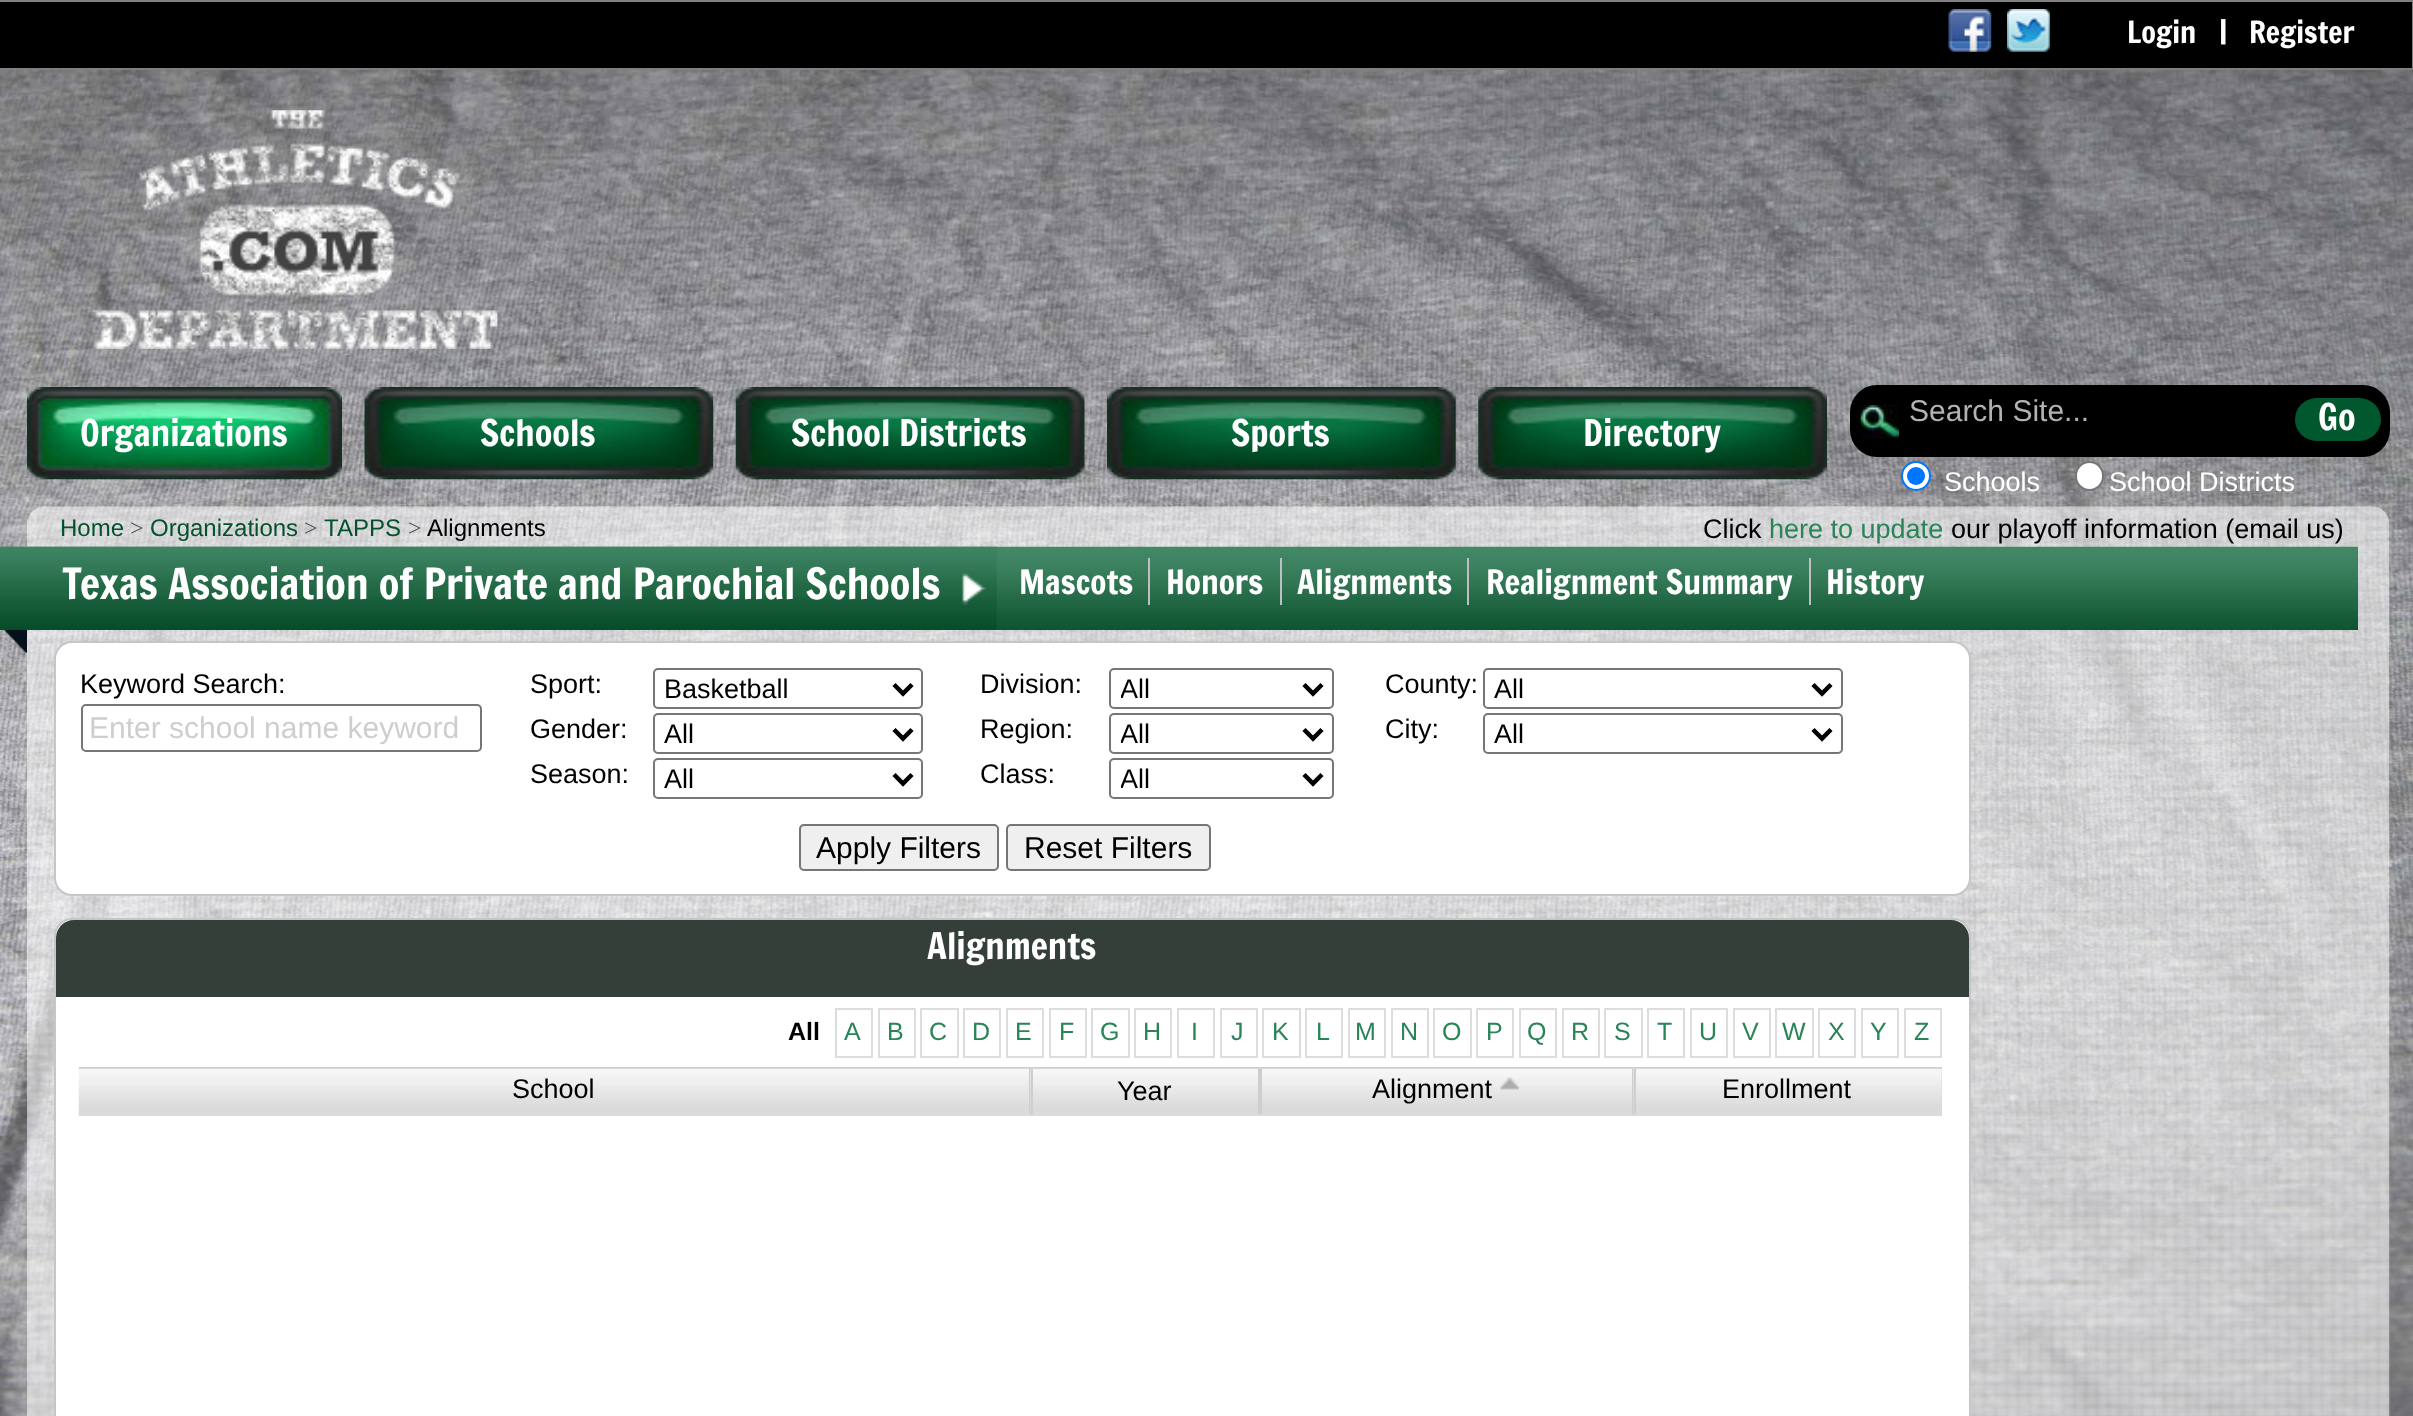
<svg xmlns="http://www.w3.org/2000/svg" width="2413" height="1416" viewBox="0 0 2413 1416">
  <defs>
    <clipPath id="clip1"><rect x="1121" y="671" width="175" height="36"/></clipPath>
    <clipPath id="clip2"><rect x="1121" y="716" width="175" height="36"/></clipPath>
    <clipPath id="clip3"><rect x="1121" y="761" width="175" height="36"/></clipPath>
    <clipPath id="clip4"><rect x="81" y="1069" width="1859" height="45"/></clipPath>
  </defs>
  <rect width="100%" height="100%" fill="#ffffff"/>
  <rect x="-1" y="1" width="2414" height="68" fill="#000000" stroke="#808080" stroke-width="2"/>
  <image x="1948" y="9" width="44" height="43" href="img1.png"/>
  <image x="2007" y="9" width="43" height="43" href="img2.png"/>
  <text x="2127" y="43" font-family="Francois One" font-size="30" fill="#ffffff">Login</text>
  <text x="2219" y="43" font-family="Francois One" font-size="30" fill="#ffffff">|</text>
  <text x="2249" y="43" font-family="Francois One" font-size="30" fill="#ffffff">Register</text>
  <image x="0" y="70" width="2413" height="1346" href="img19.png"/>
  <image x="94" y="110" width="404" height="239" href="img3.png"/>
  <image x="27" y="387" width="315" height="93" href="img4.png"/>
  <text x="80" y="446" font-family="Francois One" font-size="36" fill="#ffffff">Organizations</text>
  <image x="364" y="387" width="350" height="93" href="img5.png"/>
  <text x="480" y="446" font-family="Francois One" font-size="36" fill="#ffffff">Schools</text>
  <image x="735" y="387" width="350" height="93" href="img6.png"/>
  <text x="791" y="446" font-family="Francois One" font-size="36" fill="#ffffff">School Districts</text>
  <image x="1107" y="387" width="349" height="93" href="img7.png"/>
  <text x="1231" y="446" font-family="Francois One" font-size="36" fill="#ffffff">Sports</text>
  <image x="1478" y="387" width="349" height="93" href="img8.png"/>
  <text x="1583" y="446" font-family="Francois One" font-size="36" fill="#ffffff">Directory</text>
  <rect x="1850" y="385" width="540" height="72" rx="27" fill="#000000"/>
  <image x="1860" y="405" width="39" height="34" href="img9.png"/>
  <text x="1909" y="421" font-family="Liberation Sans" font-size="30" fill="#b2b2b2">Search Site...</text>
  <rect x="2295" y="398" width="86" height="43" rx="21.5" fill="#01582e"/>
  <text x="2318" y="430" font-family="Francois One" font-size="36" fill="#ffffff">Go</text>
  <circle cx="1916" cy="476" r="14" fill="#ffffff" stroke="#0075ff" stroke-width="2"/>
  <circle cx="1916" cy="476" r="9" fill="#0075ff"/>
  <text x="1944" y="491" font-family="Liberation Sans" font-size="27" fill="#ffffff">Schools</text>
  <rect x="2076" y="462" width="27" height="28" rx="13.5" fill="#ffffff" stroke="#767676" stroke-width="2"/>
  <text x="2109" y="491" font-family="Liberation Sans" font-size="27" fill="#ffffff">School Districts</text>
  <image x="27" y="506" width="2363" height="910" href="img10.png"/>
  <text x="60" y="536" font-family="Liberation Sans" font-size="24" fill="#04522b">Home</text>
  <text x="130" y="536" font-family="Liberation Serif" font-size="24" fill="#4f4f4f">&gt;</text>
  <text x="150" y="536" font-family="Liberation Sans" font-size="24" fill="#04522b">Organizations</text>
  <text x="304" y="536" font-family="Liberation Serif" font-size="24" fill="#4f4f4f">&gt;</text>
  <text x="324" y="536" font-family="Liberation Sans" font-size="24" fill="#04522b">TAPPS</text>
  <text x="408" y="536" font-family="Liberation Serif" font-size="24" fill="#4f4f4f">&gt;</text>
  <text x="427" y="536" font-family="Liberation Sans" font-size="24" fill="#000000">Alignments</text>
  <image x="0" y="546" width="2358" height="84" href="img12.png"/>
  <image x="0" y="546" width="997" height="84" href="img11.png"/>
  <text x="62" y="599" font-family="Francois One" font-size="42" fill="#ffffff">Texas Association of Private and Parochial Schools</text>
  <rect x="1148" y="558" width="2" height="47" fill="#bfbfbf"/>
  <text x="1019" y="594" font-family="Francois One" font-size="33" fill="#ffffff">Mascots</text>
  <rect x="1280" y="558" width="2" height="47" fill="#bfbfbf"/>
  <text x="1166" y="594" font-family="Francois One" font-size="33" fill="#ffffff">Honors</text>
  <rect x="1467" y="558" width="2" height="47" fill="#bfbfbf"/>
  <text x="1297" y="594" font-family="Francois One" font-size="33" fill="#ffffff">Alignments</text>
  <rect x="1809" y="558" width="2" height="47" fill="#bfbfbf"/>
  <text x="1486" y="594" font-family="Francois One" font-size="33" fill="#ffffff">Realignment Summary</text>
  <text x="1826" y="594" font-family="Francois One" font-size="33" fill="#ffffff">History</text>
  <image x="4" y="630" width="23" height="23" href="img13.png"/>
  <rect x="55" y="642" width="1915" height="253" rx="17" fill="#ffffff" stroke="#c6c6c6" stroke-width="2"/>
  <text x="80" y="693" font-family="Liberation Sans" font-size="27" fill="#000000">Keyword Search:</text>
  <rect x="82" y="705" width="399" height="46" rx="4" fill="none" stroke="#767676" stroke-width="2"/>
  <text x="89" y="738" font-family="Liberation Sans" font-size="30" fill="#cecece">Enter school name keyword</text>
  <text x="530" y="693" font-family="Liberation Sans" font-size="27" fill="#000000">Sport:</text>
  <rect x="654" y="669" width="268" height="39" rx="4" fill="none" stroke="#767676" stroke-width="2"/>
  <path d="M894 684.5L903 693.5L912 684.5" fill="none" stroke="#000000" stroke-width="4.5"/>
  <text x="664" y="698" font-family="Liberation Sans" font-size="27" fill="#000000">Basketball</text>
  <text x="530" y="738" font-family="Liberation Sans" font-size="27" fill="#000000">Gender:</text>
  <rect x="654" y="714" width="268" height="39" rx="4" fill="none" stroke="#767676" stroke-width="2"/>
  <path d="M894 729.5L903 738.5L912 729.5" fill="none" stroke="#000000" stroke-width="4.5"/>
  <text x="664" y="743" font-family="Liberation Sans" font-size="27" fill="#000000">All</text>
  <text x="530" y="783" font-family="Liberation Sans" font-size="27" fill="#000000">Season:</text>
  <rect x="654" y="759" width="268" height="39" rx="4" fill="none" stroke="#767676" stroke-width="2"/>
  <path d="M894 774.5L903 783.5L912 774.5" fill="none" stroke="#000000" stroke-width="4.5"/>
  <text x="664" y="788" font-family="Liberation Sans" font-size="27" fill="#000000">All</text>
  <text x="980" y="693" font-family="Liberation Sans" font-size="27" fill="#000000">Division:</text>
  <rect x="1110" y="669" width="223" height="39" rx="4" fill="none" stroke="#767676" stroke-width="2"/>
  <path d="M1304 684.5L1313 693.5L1322 684.5" fill="none" stroke="#000000" stroke-width="4.5"/>
  <g clip-path="url(#clip1)">
    <text x="1120" y="698" font-family="Liberation Sans" font-size="27" fill="#000000">All</text>
  </g>
  <text x="980" y="738" font-family="Liberation Sans" font-size="27" fill="#000000">Region:</text>
  <rect x="1110" y="714" width="223" height="39" rx="4" fill="none" stroke="#767676" stroke-width="2"/>
  <path d="M1304 729.5L1313 738.5L1322 729.5" fill="none" stroke="#000000" stroke-width="4.5"/>
  <g clip-path="url(#clip2)">
    <text x="1120" y="743" font-family="Liberation Sans" font-size="27" fill="#000000">All</text>
  </g>
  <text x="980" y="783" font-family="Liberation Sans" font-size="27" fill="#000000">Class:</text>
  <rect x="1110" y="759" width="223" height="39" rx="4" fill="none" stroke="#767676" stroke-width="2"/>
  <path d="M1304 774.5L1313 783.5L1322 774.5" fill="none" stroke="#000000" stroke-width="4.5"/>
  <g clip-path="url(#clip3)">
    <text x="1120" y="788" font-family="Liberation Sans" font-size="27" fill="#000000">All</text>
  </g>
  <text x="1385" y="693" font-family="Liberation Sans" font-size="27" fill="#000000">County:</text>
  <rect x="1484" y="669" width="358" height="39" rx="4" fill="none" stroke="#767676" stroke-width="2"/>
  <path d="M1813 684.5L1822 693.5L1831 684.5" fill="none" stroke="#000000" stroke-width="4.5"/>
  <text x="1494" y="698" font-family="Liberation Sans" font-size="27" fill="#000000">All</text>
  <text x="1385" y="738" font-family="Liberation Sans" font-size="27" fill="#000000">City:</text>
  <rect x="1484" y="714" width="358" height="39" rx="4" fill="none" stroke="#767676" stroke-width="2"/>
  <path d="M1813 729.5L1822 738.5L1831 729.5" fill="none" stroke="#000000" stroke-width="4.5"/>
  <text x="1494" y="743" font-family="Liberation Sans" font-size="27" fill="#000000">All</text>
  <rect x="800" y="825" width="198" height="45" rx="4" fill="#efefef" stroke="#767676" stroke-width="2"/>
  <text x="816" y="858" font-family="Liberation Sans" font-size="30" fill="#000000">Apply Filters</text>
  <rect x="1007" y="825" width="203" height="45" rx="4" fill="#efefef" stroke="#767676" stroke-width="2"/>
  <text x="1024" y="858" font-family="Liberation Sans" font-size="30" fill="#000000">Reset Filters</text>
  <rect x="55" y="919" width="1915" height="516" rx="17" fill="#ffffff" stroke="#c6c6c6" stroke-width="2"/>
  <path d="M74 920H1951C1961 920 1969 928 1969 938V997H56V938C56 928 64 920 74 920Z" fill="#343f3a"/>
  <text x="927" y="959" font-family="Francois One" font-size="36" fill="#ffffff">Alignments</text>
  <text x="788" y="1040" font-family="Liberation Sans" font-size="25" font-weight="bold" fill="#000000">All</text>
  <rect x="836" y="1009" width="36" height="48" fill="none" stroke="#dddddd" stroke-width="2"/>
  <text x="844" y="1040" font-family="Liberation Sans" font-size="25" fill="#298456">A</text>
  <rect x="879" y="1009" width="36" height="48" fill="none" stroke="#dddddd" stroke-width="2"/>
  <text x="887" y="1040" font-family="Liberation Sans" font-size="25" fill="#298456">B</text>
  <rect x="921" y="1009" width="37" height="48" fill="none" stroke="#dddddd" stroke-width="2"/>
  <text x="929" y="1040" font-family="Liberation Sans" font-size="25" fill="#298456">C</text>
  <rect x="964" y="1009" width="36" height="48" fill="none" stroke="#dddddd" stroke-width="2"/>
  <text x="972" y="1040" font-family="Liberation Sans" font-size="25" fill="#298456">D</text>
  <rect x="1007" y="1009" width="36" height="48" fill="none" stroke="#dddddd" stroke-width="2"/>
  <text x="1015" y="1040" font-family="Liberation Sans" font-size="25" fill="#298456">E</text>
  <rect x="1050" y="1009" width="36" height="48" fill="none" stroke="#dddddd" stroke-width="2"/>
  <text x="1059" y="1040" font-family="Liberation Sans" font-size="25" fill="#298456">F</text>
  <rect x="1092" y="1009" width="37" height="48" fill="none" stroke="#dddddd" stroke-width="2"/>
  <text x="1100" y="1040" font-family="Liberation Sans" font-size="25" fill="#298456">G</text>
  <rect x="1135" y="1009" width="36" height="48" fill="none" stroke="#dddddd" stroke-width="2"/>
  <text x="1143" y="1040" font-family="Liberation Sans" font-size="25" fill="#298456">H</text>
  <rect x="1178" y="1009" width="36" height="48" fill="none" stroke="#dddddd" stroke-width="2"/>
  <text x="1191" y="1040" font-family="Liberation Sans" font-size="25" fill="#298456">I</text>
  <rect x="1221" y="1009" width="36" height="48" fill="none" stroke="#dddddd" stroke-width="2"/>
  <text x="1231" y="1040" font-family="Liberation Sans" font-size="25" fill="#298456">J</text>
  <rect x="1263" y="1009" width="37" height="48" fill="none" stroke="#dddddd" stroke-width="2"/>
  <text x="1272" y="1040" font-family="Liberation Sans" font-size="25" fill="#298456">K</text>
  <rect x="1306" y="1009" width="36" height="48" fill="none" stroke="#dddddd" stroke-width="2"/>
  <text x="1316" y="1040" font-family="Liberation Sans" font-size="25" fill="#298456">L</text>
  <rect x="1349" y="1009" width="36" height="48" fill="none" stroke="#dddddd" stroke-width="2"/>
  <text x="1355" y="1040" font-family="Liberation Sans" font-size="25" fill="#298456">M</text>
  <rect x="1392" y="1009" width="36" height="48" fill="none" stroke="#dddddd" stroke-width="2"/>
  <text x="1400" y="1040" font-family="Liberation Sans" font-size="25" fill="#298456">N</text>
  <rect x="1434" y="1009" width="37" height="48" fill="none" stroke="#dddddd" stroke-width="2"/>
  <text x="1442" y="1040" font-family="Liberation Sans" font-size="25" fill="#298456">O</text>
  <rect x="1477" y="1009" width="36" height="48" fill="none" stroke="#dddddd" stroke-width="2"/>
  <text x="1486" y="1040" font-family="Liberation Sans" font-size="25" fill="#298456">P</text>
  <rect x="1520" y="1009" width="36" height="48" fill="none" stroke="#dddddd" stroke-width="2"/>
  <text x="1527" y="1040" font-family="Liberation Sans" font-size="25" fill="#298456">Q</text>
  <rect x="1563" y="1009" width="36" height="48" fill="none" stroke="#dddddd" stroke-width="2"/>
  <text x="1571" y="1040" font-family="Liberation Sans" font-size="25" fill="#298456">R</text>
  <rect x="1605" y="1009" width="37" height="48" fill="none" stroke="#dddddd" stroke-width="2"/>
  <text x="1614" y="1040" font-family="Liberation Sans" font-size="25" fill="#298456">S</text>
  <rect x="1648" y="1009" width="36" height="48" fill="none" stroke="#dddddd" stroke-width="2"/>
  <text x="1657" y="1040" font-family="Liberation Sans" font-size="25" fill="#298456">T</text>
  <rect x="1691" y="1009" width="36" height="48" fill="none" stroke="#dddddd" stroke-width="2"/>
  <text x="1699" y="1040" font-family="Liberation Sans" font-size="25" fill="#298456">U</text>
  <rect x="1734" y="1009" width="36" height="48" fill="none" stroke="#dddddd" stroke-width="2"/>
  <text x="1742" y="1040" font-family="Liberation Sans" font-size="25" fill="#298456">V</text>
  <rect x="1776" y="1009" width="37" height="48" fill="none" stroke="#dddddd" stroke-width="2"/>
  <text x="1782" y="1040" font-family="Liberation Sans" font-size="25" fill="#298456">W</text>
  <rect x="1819" y="1009" width="36" height="48" fill="none" stroke="#dddddd" stroke-width="2"/>
  <text x="1828" y="1040" font-family="Liberation Sans" font-size="25" fill="#298456">X</text>
  <rect x="1862" y="1009" width="36" height="48" fill="none" stroke="#dddddd" stroke-width="2"/>
  <text x="1870" y="1040" font-family="Liberation Sans" font-size="25" fill="#298456">Y</text>
  <rect x="1905" y="1009" width="36" height="48" fill="none" stroke="#dddddd" stroke-width="2"/>
  <text x="1914" y="1040" font-family="Liberation Sans" font-size="25" fill="#298456">Z</text>
  <rect x="80" y="1068" width="1861" height="47" fill="none" stroke="#cecece" stroke-width="2"/>
  <image x="78" y="1068" width="953" height="48" href="img14.png"/>
  <g clip-path="url(#clip4)">
    <rect x="80" y="1068" width="950" height="47" fill="none" stroke="#cecece" stroke-width="2"/>
  </g>
  <text x="512" y="1098" font-family="Liberation Sans" font-size="27" fill="#000000">School</text>
  <image x="1030" y="1068" width="230" height="48" href="img15.png"/>
  <g clip-path="url(#clip4)">
    <rect x="1032" y="1068" width="227" height="47" fill="none" stroke="#cecece" stroke-width="2"/>
  </g>
  <text x="1117" y="1100" font-family="Liberation Sans" font-size="27" fill="#000000">Year</text>
  <image x="1260" y="1068" width="374" height="48" href="img16.png"/>
  <g clip-path="url(#clip4)">
    <rect x="1261" y="1068" width="372" height="47" fill="none" stroke="#cecece" stroke-width="2"/>
  </g>
  <text x="1372" y="1098" font-family="Liberation Sans" font-size="27" fill="#000000">Alignment</text>
  <image x="1500" y="1077" width="19" height="13" href="img17.png"/>
  <image x="1633" y="1068" width="309" height="48" href="img18.png"/>
  <g clip-path="url(#clip4)">
    <rect x="1635" y="1068" width="306" height="47" fill="none" stroke="#cecece" stroke-width="2"/>
  </g>
  <text x="1722" y="1098" font-family="Liberation Sans" font-size="27" fill="#000000">Enrollment</text>
  <text x="1703" y="538" font-family="Liberation Sans" font-size="27" fill="#000000">Click</text>
  <text x="1769" y="538" font-family="Liberation Sans" font-size="27" fill="#298456">here to update</text>
  <text x="1951" y="538" font-family="Liberation Sans" font-size="27" fill="#000000">our playoff information (email us)</text>
</svg>
